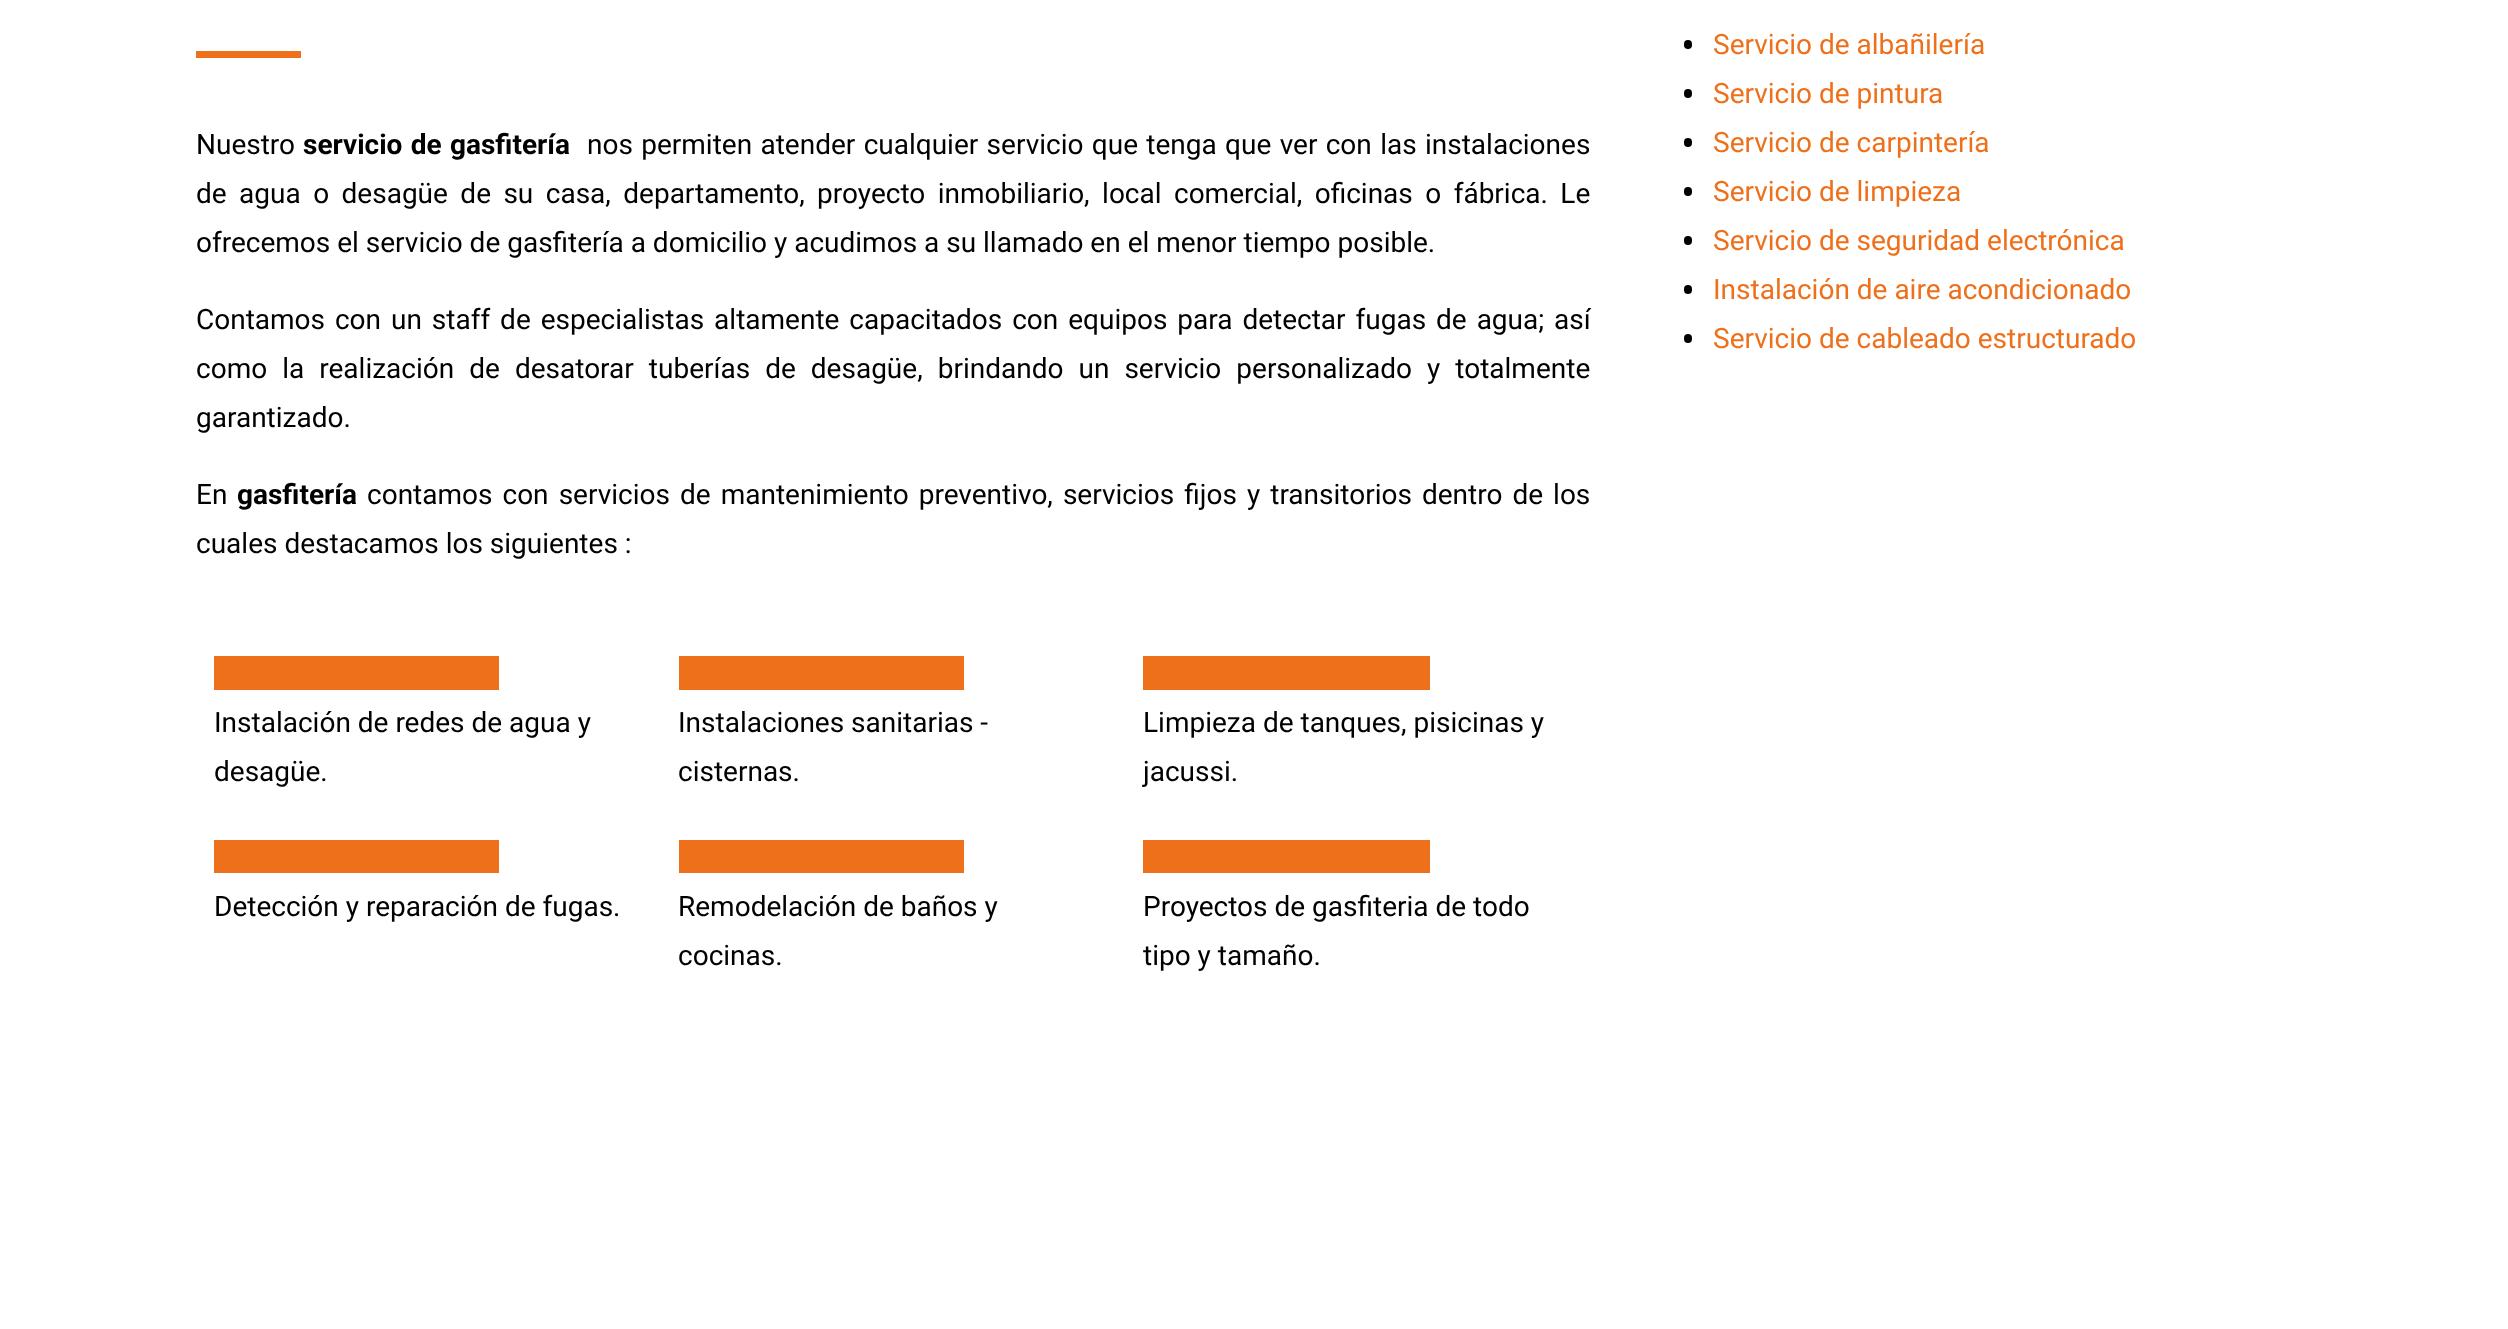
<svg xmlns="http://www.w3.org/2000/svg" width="2508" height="1329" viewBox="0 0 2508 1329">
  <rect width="100%" height="100%" fill="#ffffff"/>
  <rect x="196" y="51" width="105" height="7" fill="#ef701b"/>
  <text x="196" y="154" font-family="Roboto" font-size="28" fill="#000000">Nuestro</text>
  <text x="303" y="154" word-spacing="1.4" font-family="Roboto" font-size="28" font-weight="bold" fill="#000000">servicio de</text>
  <text x="450" y="154" font-family="Roboto" font-size="28" font-weight="bold" fill="#000000">gasfitería</text>
  <text x="587" y="154" word-spacing="1.4" font-family="Roboto" font-size="28" fill="#000000">nos permiten atender cualquier servicio que tenga que ver con las instalaciones</text>
  <text x="196" y="203" word-spacing="5.5" font-family="Roboto" font-size="28" fill="#000000">de agua o desagüe de su casa, departamento, proyecto inmobiliario, local comercial, oficinas o fábrica. Le</text>
  <text x="196" y="252" font-family="Roboto" font-size="28" fill="#000000">ofrecemos el servicio de gasfitería a domicilio y acudimos a su llamado en el menor tiempo posible.</text>
  <text x="196" y="329" word-spacing="3" font-family="Roboto" font-size="28" fill="#000000">Contamos con un staff de especialistas altamente capacitados con equipos para detectar fugas de agua; así</text>
  <text x="196" y="378" word-spacing="8.1" font-family="Roboto" font-size="28" fill="#000000">como la realización de desatorar tuberías de desagüe, brindando un servicio personalizado y totalmente</text>
  <text x="196" y="427" font-family="Roboto" font-size="28" fill="#000000">garantizado.</text>
  <text x="196" y="504" font-family="Roboto" font-size="28" fill="#000000">En</text>
  <text x="237" y="504" font-family="Roboto" font-size="28" font-weight="bold" fill="#000000">gasfitería</text>
  <text x="367" y="504" word-spacing="3.1" font-family="Roboto" font-size="28" fill="#000000">contamos con servicios de mantenimiento preventivo, servicios fijos y transitorios dentro de los</text>
  <text x="196" y="553" font-family="Roboto" font-size="28" fill="#000000">cuales destacamos los siguientes :</text>
  <rect x="214" y="656" width="285" height="34" fill="#ee701b"/>
  <text x="214" y="732" font-family="Roboto" font-size="28" fill="#000000">Instalación de redes de agua y</text>
  <text x="214" y="781" font-family="Roboto" font-size="28" fill="#000000">desagüe.</text>
  <rect x="679" y="656" width="285" height="34" fill="#ee701b"/>
  <text x="678" y="732" font-family="Roboto" font-size="28" fill="#000000">Instalaciones sanitarias -</text>
  <text x="678" y="781" font-family="Roboto" font-size="28" fill="#000000">cisternas.</text>
  <rect x="1143" y="656" width="287" height="34" fill="#ee701b"/>
  <text x="1143" y="732" font-family="Roboto" font-size="28" fill="#000000">Limpieza de tanques, pisicinas y</text>
  <text x="1143" y="781" font-family="Roboto" font-size="28" fill="#000000">jacussi.</text>
  <rect x="214" y="840" width="285" height="33" fill="#ee701b"/>
  <text x="214" y="916" font-family="Roboto" font-size="28" fill="#000000">Detección y reparación de fugas.</text>
  <rect x="679" y="840" width="285" height="33" fill="#ee701b"/>
  <text x="678" y="916" font-family="Roboto" font-size="28" fill="#000000">Remodelación de baños y</text>
  <text x="678" y="965" font-family="Roboto" font-size="28" fill="#000000">cocinas.</text>
  <rect x="1143" y="840" width="287" height="33" fill="#ee701b"/>
  <text x="1143" y="916" font-family="Roboto" font-size="28" fill="#000000">Proyectos de gasfiteria de todo</text>
  <text x="1143" y="965" font-family="Roboto" font-size="28" fill="#000000">tipo y tamaño.</text>
  <rect x="1684" y="40" width="8" height="9" rx="4" fill="#000000"/>
  <text x="1713" y="54" font-family="Roboto" font-size="28" fill="#ee701b">Servicio de albañilería</text>
  <rect x="1684" y="89" width="8" height="9" rx="4" fill="#000000"/>
  <text x="1713" y="103" font-family="Roboto" font-size="28" fill="#ee701b">Servicio de pintura</text>
  <rect x="1684" y="138" width="8" height="9" rx="4" fill="#000000"/>
  <text x="1713" y="152" font-family="Roboto" font-size="28" fill="#ee701b">Servicio de carpintería</text>
  <rect x="1684" y="187" width="8" height="9" rx="4" fill="#000000"/>
  <text x="1713" y="201" font-family="Roboto" font-size="28" fill="#ee701b">Servicio de limpieza</text>
  <rect x="1684" y="236" width="8" height="9" rx="4" fill="#000000"/>
  <text x="1713" y="250" font-family="Roboto" font-size="28" fill="#ee701b">Servicio de seguridad electrónica</text>
  <rect x="1684" y="285" width="8" height="9" rx="4" fill="#000000"/>
  <text x="1713" y="299" font-family="Roboto" font-size="28" fill="#ee701b">Instalación de aire acondicionado</text>
  <rect x="1684" y="334" width="8" height="9" rx="4" fill="#000000"/>
  <text x="1713" y="348" font-family="Roboto" font-size="28" fill="#ee701b">Servicio de cableado estructurado</text>
</svg>
